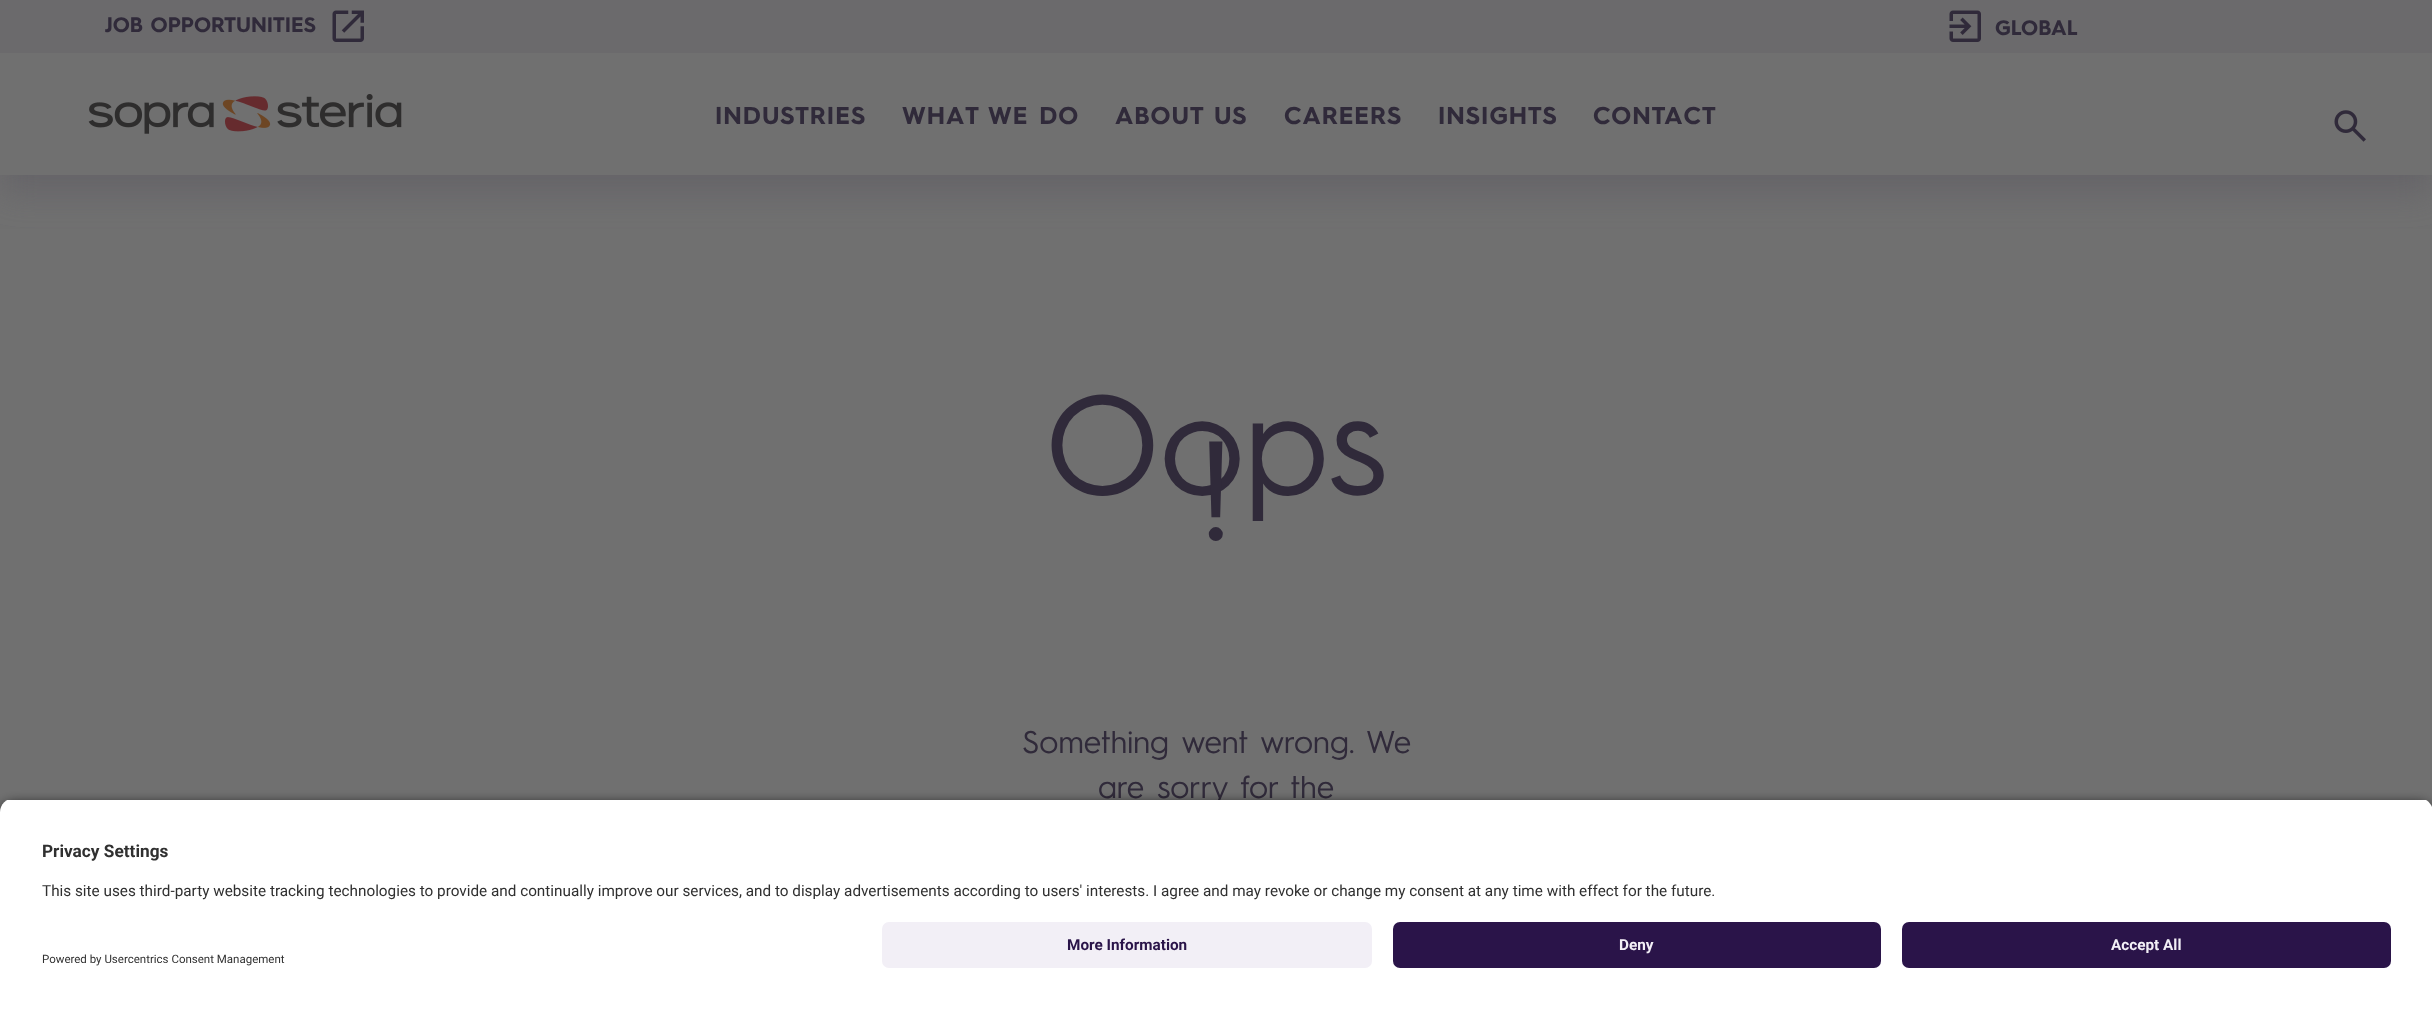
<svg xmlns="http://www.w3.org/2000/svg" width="2432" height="1009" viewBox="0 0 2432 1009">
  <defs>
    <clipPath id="clip1"><rect x="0" y="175" width="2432" height="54"/></clipPath>
    <filter id="blur1" x="-50%" y="-200%" width="200%" height="500%"><feGaussianBlur stdDeviation="17.5"/></filter>
    <filter id="blur2" x="-50%" y="-200%" width="200%" height="500%"><feGaussianBlur stdDeviation="6"/></filter>
    <clipPath id="clip2"><path d="M14 798H2419C2426.5 798 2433 804.5 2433 812V908H0V812C0 804.5 6.5 798 14 798Z"/></clipPath>
  </defs>
  <rect width="100%" height="100%" fill="#707070"/>
  <g clip-path="url(#clip1)">
    <rect x="0" y="18" width="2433" height="175" fill="#656368" filter="url(#blur1)"/>
  </g>
  <rect x="0" y="0" width="2432" height="53" fill="#6b6a6c"/>
  <text x="105" y="32" font-family="'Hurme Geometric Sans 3'" font-size="21" font-weight="bold" fill="#302a3a">JOB OPPORTUNITIES</text>
  <image x="332" y="10" width="32" height="32" href="img1.png"/>
  <image x="1949" y="10" width="32" height="32" href="img2.png"/>
  <text x="1995" y="35" font-family="'Hurme Geometric Sans 3'" font-size="21" font-weight="bold" fill="#302a3a">GLOBAL</text>
  <image x="88" y="94" width="314" height="40" href="img3.png"/>
  <text x="715" y="124" font-family="'Hurme Geometric Sans 3'" font-size="24.5" font-weight="bold" letter-spacing="1" fill="#302a3a">INDUSTRIES</text>
  <text x="902" y="124" font-family="'Hurme Geometric Sans 3'" font-size="24.5" font-weight="bold" letter-spacing="1" fill="#302a3a">WHAT WE DO</text>
  <text x="1115" y="124" font-family="'Hurme Geometric Sans 3'" font-size="24.5" font-weight="bold" letter-spacing="1" fill="#302a3a">ABOUT US</text>
  <text x="1284" y="124" font-family="'Hurme Geometric Sans 3'" font-size="24.5" font-weight="bold" letter-spacing="1" fill="#302a3a">CAREERS</text>
  <text x="1438" y="124" font-family="'Hurme Geometric Sans 3'" font-size="24.5" font-weight="bold" letter-spacing="1" fill="#302a3a">INSIGHTS</text>
  <text x="1593" y="124" font-family="'Hurme Geometric Sans 3'" font-size="24.5" font-weight="bold" letter-spacing="1" fill="#302a3a">CONTACT</text>
  <image x="2334" y="110" width="32" height="32" href="img4.png"/>
  <text x="1045" y="494" font-family="'Hurme Geometric Sans 3'" font-size="140" fill="#302a3a">Oops</text>
  <text x="1199" y="539" font-family="'Hurme Geometric Sans 3'" font-size="140" fill="#302a3a">!</text>
  <text x="1022" y="753" font-family="'Hurme Geometric Sans 3'" font-size="31.5" fill="#302a3a">Something went wrong. We</text>
  <text x="1098" y="798" font-family="'Hurme Geometric Sans 3'" font-size="31.5" fill="#302a3a">are sorry for the</text>
  <rect x="0" y="803" width="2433" height="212" rx="14" fill="#000000" fill-opacity="0.8" filter="url(#blur2)"/>
  <g clip-path="url(#clip2)">
    <rect x="0" y="800" width="2432" height="108" fill="#ffffff"/>
  </g>
  <text x="42" y="857" font-family="Roboto" font-size="17.25" font-weight="bold" fill="#303030">Privacy Settings</text>
  <text x="42" y="896" font-family="Roboto" font-size="15.31" fill="#303030">This site uses third-party website tracking technologies to provide and continually improve our services, and to display advertisements according to users' interests. I agree and may revoke or change my consent at any time with effect for the future.</text>
  <rect x="0" y="908" width="2432" height="101" fill="#ffffff"/>
  <rect x="882" y="922" width="490" height="46" rx="7" fill="#f2eff6"/>
  <text x="1067" y="950" font-family="Roboto" font-size="15.31" font-weight="bold" fill="#2a1449">More Information</text>
  <rect x="1393" y="922" width="488" height="46" rx="7" fill="#2a1449"/>
  <text x="1619" y="950" font-family="Roboto" font-size="15.31" font-weight="bold" fill="#f2eff6">Deny</text>
  <rect x="1902" y="922" width="489" height="46" rx="7" fill="#2a1449"/>
  <text x="2111" y="950" font-family="Roboto" font-size="15.31" font-weight="bold" fill="#f2eff6">Accept All</text>
  <text x="42" y="963" font-family="Roboto" font-size="11.5" fill="#303030">Powered by Usercentrics Consent Management</text>
</svg>
